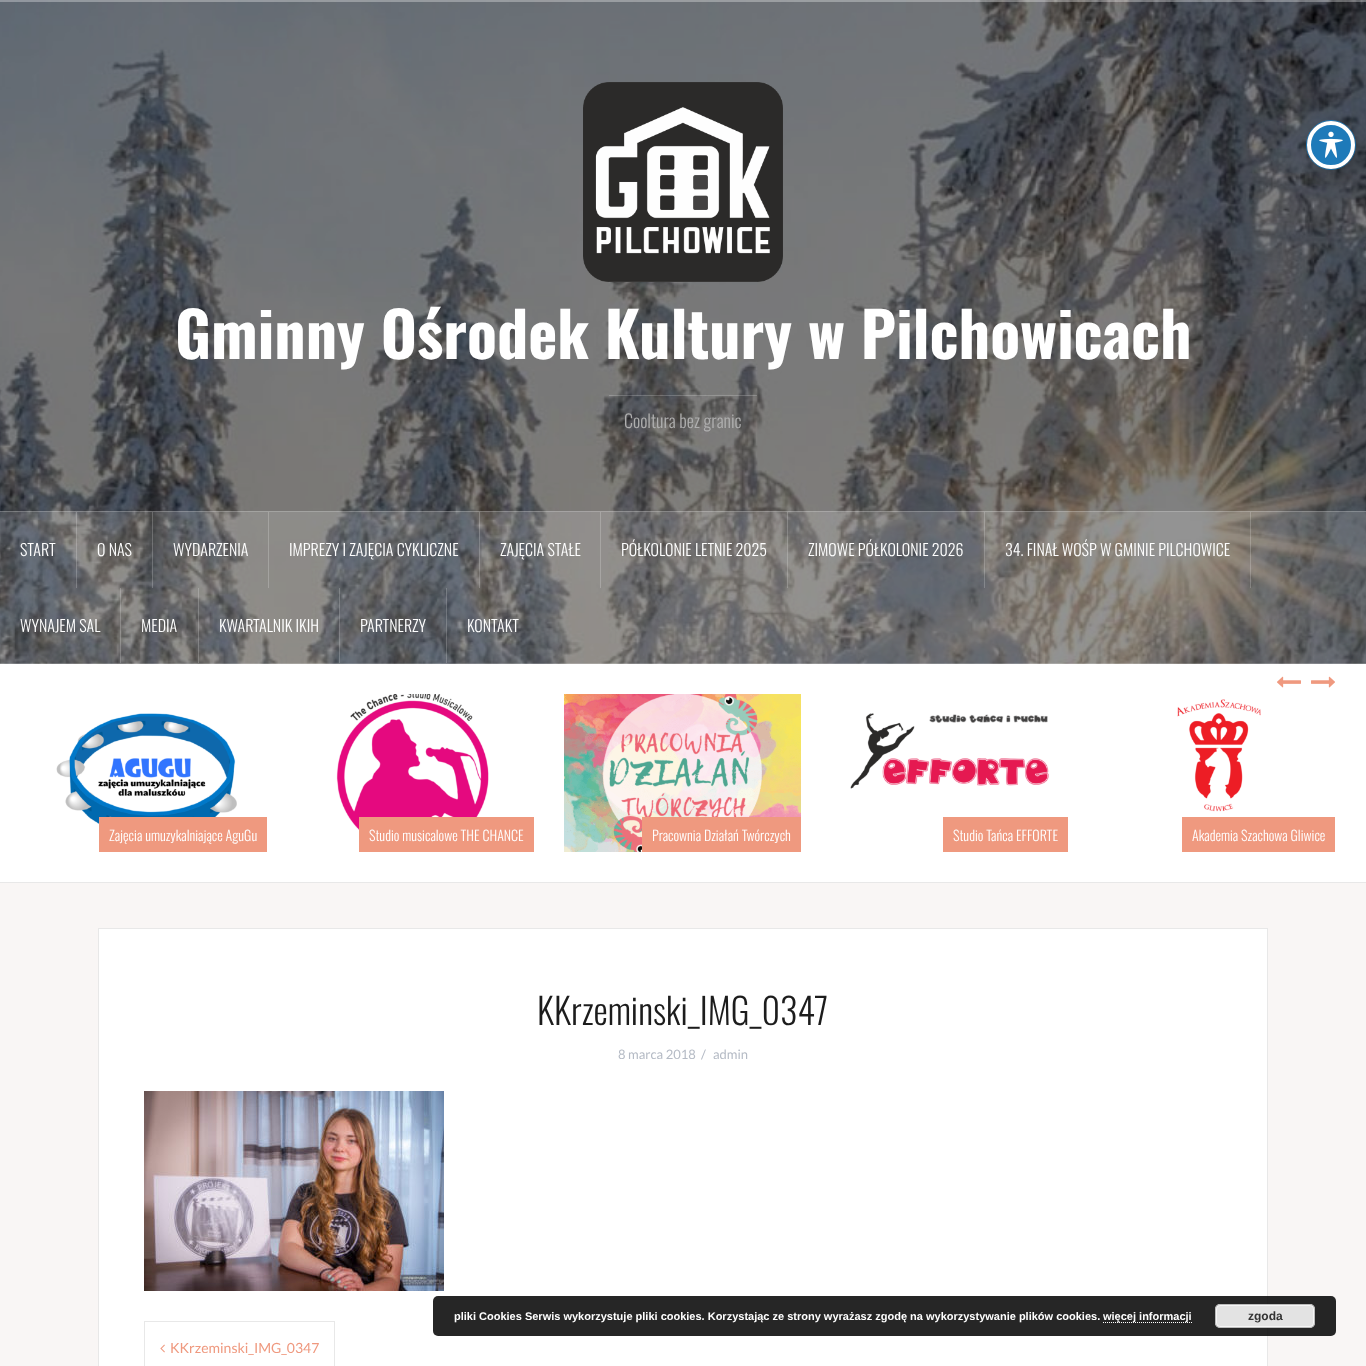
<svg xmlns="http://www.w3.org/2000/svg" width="1366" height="1366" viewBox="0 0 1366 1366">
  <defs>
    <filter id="blur1" x="-50%" y="-200%" width="200%" height="500%"><feGaussianBlur stdDeviation="8"/></filter>
  </defs>
  <rect width="100%" height="100%" fill="#f9f6f5"/>
  <image x="0" y="0" width="1366" height="664" href="img2.png"/>
  <circle cx="1331" cy="145" r="24.5" fill="none" stroke="#1e7ab9"/>
  <rect x="1313" y="129" width="48" height="48" rx="24" fill="#000000" fill-opacity="0.2" filter="url(#blur1)"/>
  <circle cx="1331" cy="145" r="22" fill="#1e7ab9" stroke="#ffffff" stroke-width="4"/>
  <image x="1319" y="131" width="24" height="27" href="img1.png"/>
  <rect x="0" y="0" width="1366" height="2" fill="#ffffff" fill-opacity="0.15"/>
  <rect x="0" y="0" width="1366" height="1" fill="#ffffff" fill-opacity="0.2"/>
  <rect x="0" y="1" width="1366" height="1" fill="#ffffff" fill-opacity="0.2"/>
  <image x="583" y="82" width="200" height="200" href="img3.png"/>
  <text x="175" y="359" font-family="Oswald" font-size="62" font-weight="bold" fill="#ffffff">Gminny Ośrodek Kultury w Pilchowicach</text>
  <rect x="609" y="395" width="148" height="1" fill="#ffffff" fill-opacity="0.2"/>
  <text x="624" y="428" font-family="Oswald" font-size="18" font-weight="300" fill="#afafaf">Cooltura bez granic</text>
  <rect x="0" y="511" width="1366" height="153" fill="#ffffff" fill-opacity="0.15"/>
  <rect x="0" y="511" width="1366" height="1" fill="#ffffff" fill-opacity="0.2"/>
  <rect x="0" y="663" width="1366" height="1" fill="#ffffff" fill-opacity="0.2"/>
  <rect x="76" y="512" width="1" height="76" fill="#ffffff" fill-opacity="0.2"/>
  <text x="20" y="556" font-family="Oswald" font-size="16" font-weight="300" fill="#ffffff">START</text>
  <rect x="152" y="512" width="1" height="76" fill="#ffffff" fill-opacity="0.2"/>
  <text x="97" y="556" font-family="Oswald" font-size="16" font-weight="300" fill="#ffffff">O NAS</text>
  <rect x="268" y="512" width="1" height="76" fill="#a4a3a0"/>
  <text x="173" y="556" font-family="Oswald" font-size="16" font-weight="300" fill="#ffffff">WYDARZENIA</text>
  <rect x="479" y="512" width="1" height="76" fill="#ffffff" fill-opacity="0.2"/>
  <text x="289" y="556" font-family="Oswald" font-size="16" font-weight="300" fill="#ffffff">IMPREZY I ZAJĘCIA CYKLICZNE</text>
  <rect x="600" y="512" width="1" height="76" fill="#a7a5a3"/>
  <text x="500" y="556" font-family="Oswald" font-size="16" font-weight="300" fill="#ffffff">ZAJĘCIA STAŁE</text>
  <rect x="787" y="512" width="1" height="76" fill="#ffffff" fill-opacity="0.2"/>
  <text x="621" y="556" font-family="Oswald" font-size="16" font-weight="300" fill="#ffffff">PÓŁKOLONIE LETNIE 2025</text>
  <rect x="984" y="512" width="1" height="76" fill="#ffffff" fill-opacity="0.2"/>
  <text x="808" y="556" font-family="Oswald" font-size="16" font-weight="300" fill="#ffffff">ZIMOWE PÓŁKOLONIE 2026</text>
  <rect x="1250" y="512" width="1" height="76" fill="#ffffff" fill-opacity="0.2"/>
  <text x="1005" y="556" font-family="Oswald" font-size="16" font-weight="300" fill="#ffffff">34. FINAŁ WOŚP W GMINIE PILCHOWICE</text>
  <rect x="120" y="588" width="1" height="75" fill="#ffffff" fill-opacity="0.2"/>
  <text x="20" y="632" font-family="Oswald" font-size="16" font-weight="300" fill="#ffffff">WYNAJEM SAL</text>
  <rect x="198" y="588" width="1" height="75" fill="#ffffff" fill-opacity="0.2"/>
  <text x="141" y="632" font-family="Oswald" font-size="16" font-weight="300" fill="#ffffff">MEDIA</text>
  <rect x="339" y="588" width="1" height="75" fill="#ffffff" fill-opacity="0.2"/>
  <text x="219" y="632" font-family="Oswald" font-size="16" font-weight="300" fill="#ffffff">KWARTALNIK IKIH</text>
  <rect x="446" y="588" width="1" height="75" fill="#ffffff" fill-opacity="0.2"/>
  <text x="360" y="632" font-family="Oswald" font-size="16" font-weight="300" fill="#ffffff">PARTNERZY</text>
  <text x="467" y="632" font-family="Oswald" font-size="16" font-weight="300" fill="#ffffff">KONTAKT</text>
  <rect x="0" y="664" width="1366" height="218" fill="#ffffff"/>
  <rect x="0" y="882" width="1366" height="1" fill="#e8e8e8"/>
  <image x="1277" y="676" width="24" height="12" href="img4.png"/>
  <image x="1311" y="676" width="24" height="12" href="img5.png"/>
  <image x="56" y="713" width="181" height="125" href="img6.png"/>
  <rect x="99" y="817" width="168" height="35" fill="#ef997f"/>
  <text x="109" y="841" font-family="Oswald" font-size="14" font-weight="300" fill="#ffffff">Zajęcia umuzykalniające AguGu</text>
  <image x="336" y="694" width="153" height="158" href="img7.png"/>
  <rect x="359" y="817" width="175" height="35" fill="#ef997f"/>
  <text x="369" y="841" font-family="Oswald" font-size="14" font-weight="300" fill="#ffffff">Studio musicalowe THE CHANCE</text>
  <image x="564" y="694" width="237" height="158" href="img8.png"/>
  <rect x="642" y="817" width="159" height="35" fill="#ef997f"/>
  <text x="652" y="841" font-family="Oswald" font-size="14" font-weight="300" fill="#ffffff">Pracownia Działań Twórczych</text>
  <image x="850" y="713" width="199" height="76" href="img9.png"/>
  <rect x="943" y="817" width="125" height="35" fill="#ef997f"/>
  <text x="953" y="841" font-family="Oswald" font-size="14" font-weight="300" fill="#ffffff">Studio Tańca EFFORTE</text>
  <image x="1177" y="699" width="84" height="113" href="img10.png"/>
  <rect x="1182" y="817" width="153" height="35" fill="#ef997f"/>
  <text x="1192" y="841" font-family="Oswald" font-size="14" font-weight="300" fill="#ffffff">Akademia Szachowa Gliwice</text>
  <rect x="98.5" y="928.5" width="1169" height="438" fill="#ffffff" stroke="#e8e8e8"/>
  <text x="537" y="1025" font-family="Oswald" font-size="36" font-weight="300" fill="#1c1c1c">KKrzeminski_IMG_0347</text>
  <text x="618" y="1059" font-family="Lato" font-size="13" fill="#b5bbc5">8 marca 2018</text>
  <text x="701" y="1059" font-family="Lato" font-size="13" fill="#b5bbc5">/</text>
  <text x="713" y="1059" font-family="Lato" font-size="13" fill="#b5bbc5">admin</text>
  <image x="144" y="1091" width="300" height="200" href="img11.png"/>
  <rect x="144.5" y="1321.5" width="190" height="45" fill="none" stroke="#e8e8e8"/>
  <image x="160" y="1344" width="5" height="9" href="img12.png"/>
  <text x="170" y="1353" font-family="Lato" font-size="14" fill="#ef997f">KKrzeminski_IMG_0347</text>
  <rect x="433" y="1296" width="903" height="40" rx="5" fill="#000000" fill-opacity="0.85"/>
  <text x="454" y="1320" font-family="Liberation Sans" font-size="11" font-weight="bold" fill="#ffffff">pliki Cookies Serwis wykorzystuje pliki cookies. Korzystając ze strony wyrażasz zgodę na wykorzystywanie plików cookies.</text>
  <path d="M1103 1322.5H1192" fill="none" stroke="#ffffff" stroke-dasharray="1 1"/>
  <text x="1103" y="1320" font-family="Liberation Sans" font-size="11" font-weight="bold" fill="#ffffff">więcej informacji</text>
  <rect x="1215" y="1304" width="100" height="24" rx="5" fill="#e3e3e3"/>
  <rect x="1216.5" y="1305.5" width="97" height="21" rx="3.5" fill="none" stroke="#f6f6f6"/>
  <rect x="1215.5" y="1304.5" width="99" height="23" rx="4.5" fill="none" stroke="#bbbbbb"/>
  <text x="1248" y="1320" font-family="Liberation Sans" font-size="12" font-weight="bold" fill="#333333">zgoda</text>
</svg>
